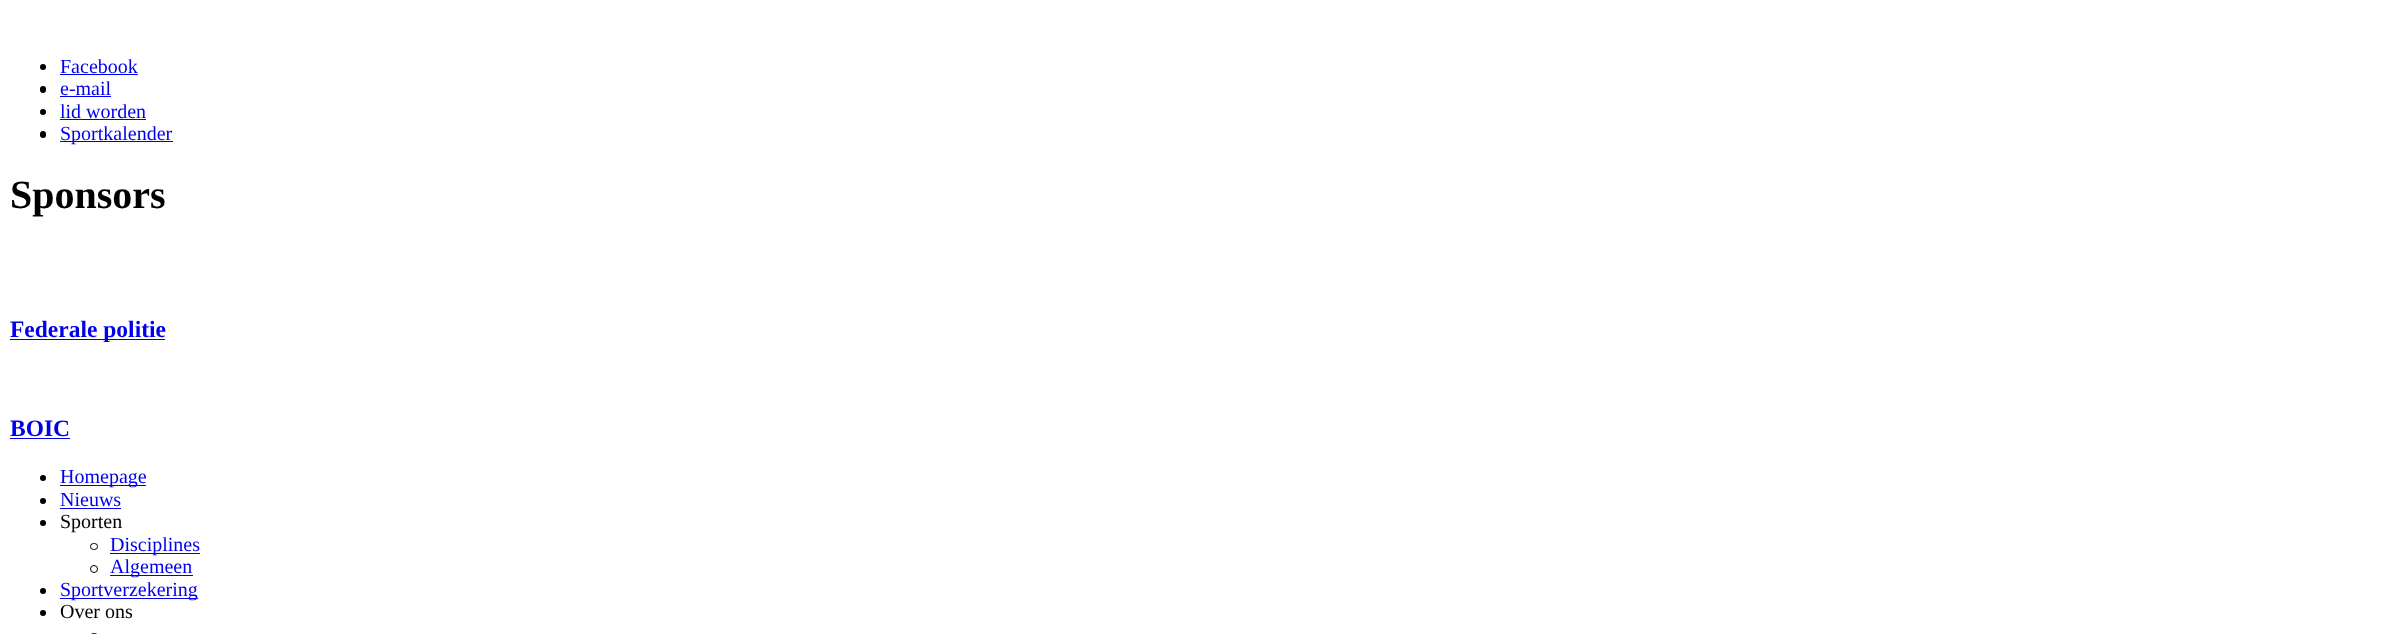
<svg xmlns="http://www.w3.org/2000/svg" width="2402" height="634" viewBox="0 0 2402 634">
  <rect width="100%" height="100%" fill="#ffffff"/>
  <circle cx="43" cy="67" r="3" fill="#000000"/>
  <text x="60" y="73" font-family="Liberation Serif" font-size="20" fill="#0000ee">Facebook</text>
  <rect x="60" y="74" width="78" height="1" fill="#0000ee"/>
  <rect x="40" y="86" width="6" height="7" rx="3" fill="#000000"/>
  <text x="60" y="95" font-family="Liberation Serif" font-size="20" fill="#0000ee">e-mail</text>
  <rect x="60" y="96" width="51" height="1" fill="#0000ee"/>
  <circle cx="43" cy="112" r="3" fill="#000000"/>
  <text x="60" y="118" font-family="Liberation Serif" font-size="20" fill="#0000ee">lid worden</text>
  <rect x="60" y="119" width="86" height="1" fill="#0000ee"/>
  <rect x="40" y="131" width="6" height="7" rx="3" fill="#000000"/>
  <rect x="60" y="141" width="113" height="1" fill="#0000ee"/>
  <text x="60" y="140" font-family="Liberation Serif" font-size="20" fill="#0000ee">Sportkalender</text>
  <text x="10" y="208" font-family="Liberation Serif" font-size="40" font-weight="bold" fill="#000000">Sponsors</text>
  <rect x="10" y="339" width="155" height="1" fill="#0000ee"/>
  <text x="10" y="337" font-family="Liberation Serif" font-size="23.5" font-weight="bold" fill="#0000ee">Federale politie</text>
  <text x="10" y="436" font-family="Liberation Serif" font-size="23.5" font-weight="bold" fill="#0000ee">BOIC</text>
  <rect x="10" y="438" width="60" height="1" fill="#0000ee"/>
  <circle cx="43" cy="478" r="3" fill="#000000"/>
  <rect x="60" y="485" width="86" height="1" fill="#0000ee"/>
  <text x="60" y="483" font-family="Liberation Serif" font-size="20" fill="#0000ee">Homepage</text>
  <circle cx="43" cy="501" r="3" fill="#000000"/>
  <text x="60" y="506" font-family="Liberation Serif" font-size="20" fill="#0000ee">Nieuws</text>
  <rect x="60" y="508" width="61" height="1" fill="#0000ee"/>
  <circle cx="43" cy="523" r="3" fill="#000000"/>
  <text x="60" y="528" font-family="Liberation Serif" font-size="20" fill="#000000">Sporten</text>
  <rect x="90.5" y="543.5" width="7" height="6" rx="3" fill="none" stroke="#000000"/>
  <rect x="110" y="553" width="90" height="1" fill="#0000ee"/>
  <text x="110" y="551" font-family="Liberation Serif" font-size="20" fill="#0000ee">Disciplines</text>
  <circle cx="94" cy="569" r="3.5" fill="none" stroke="#000000"/>
  <rect x="110" y="575" width="83" height="1" fill="#0000ee"/>
  <text x="110" y="573" font-family="Liberation Serif" font-size="20" fill="#0000ee">Algemeen</text>
  <circle cx="43" cy="591" r="3" fill="#000000"/>
  <rect x="60" y="598" width="138" height="1" fill="#0000ee"/>
  <text x="60" y="596" font-family="Liberation Serif" font-size="20" fill="#0000ee">Sportverzekering</text>
  <circle cx="43" cy="613" r="3" fill="#000000"/>
  <text x="60" y="618" font-family="Liberation Serif" font-size="20" fill="#000000">Over ons</text>
  <rect x="90.5" y="633.5" width="7" height="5" rx="3" fill="none" stroke="#000000"/>
</svg>
